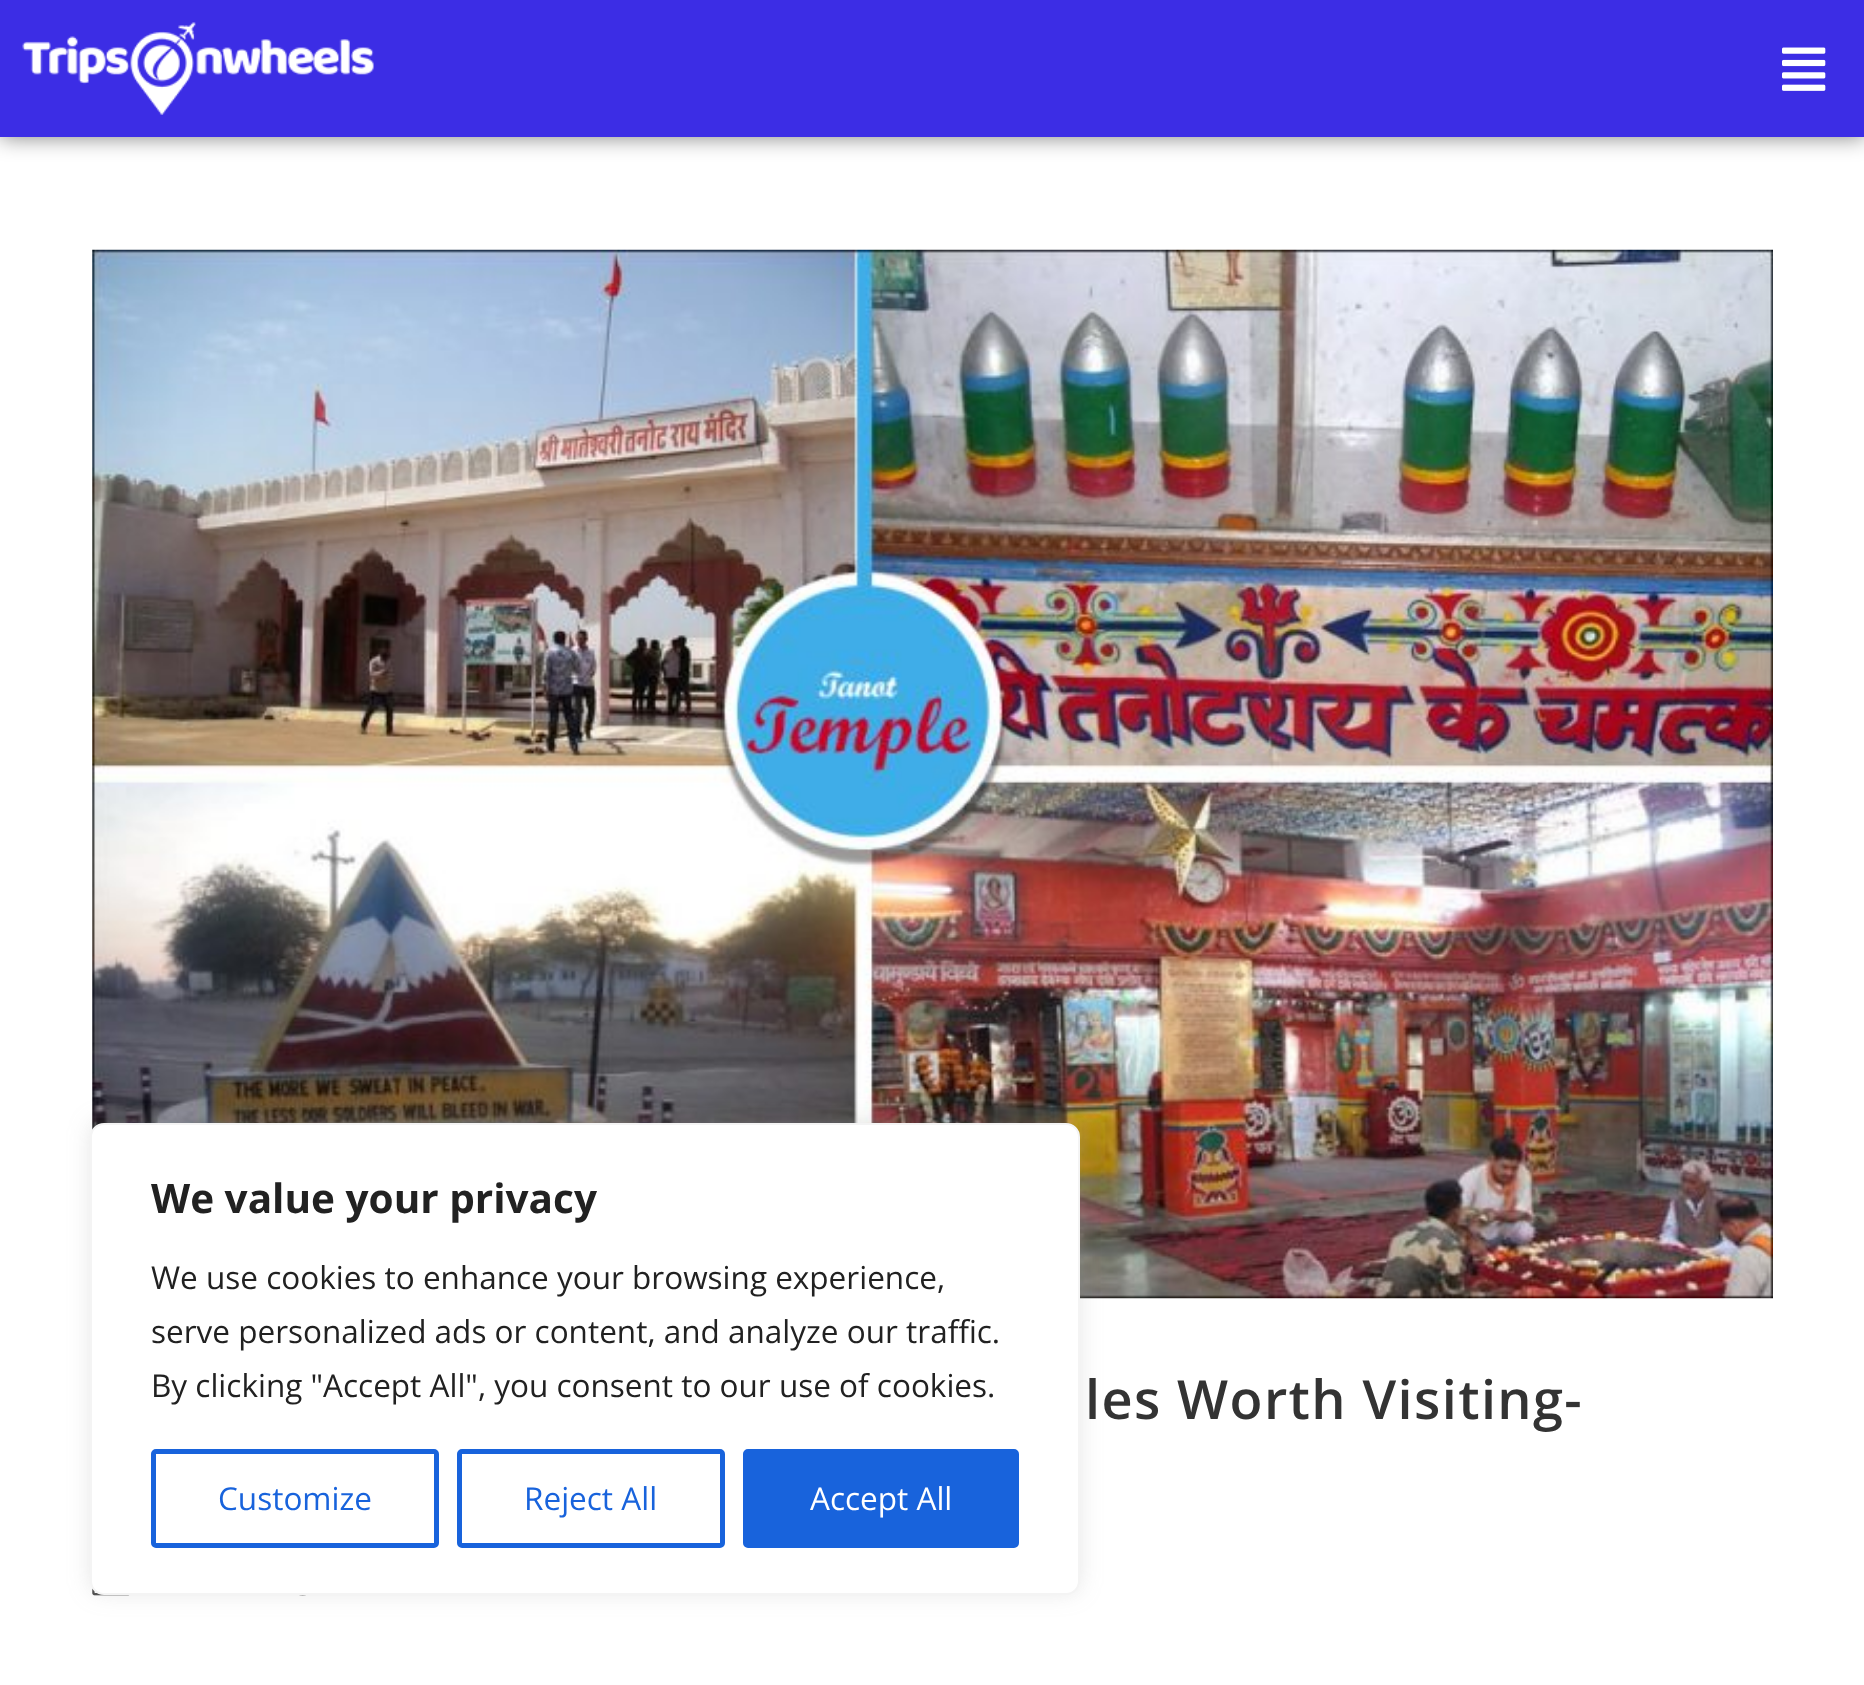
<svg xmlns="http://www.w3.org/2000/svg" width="1864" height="1685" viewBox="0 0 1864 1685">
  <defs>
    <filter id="blur1" x="-50%" y="-200%" width="200%" height="500%"><feGaussianBlur stdDeviation="11"/></filter>
  </defs>
  <rect width="100%" height="100%" fill="#ffffff"/>
  <image x="92" y="249" width="1681" height="1050" href="img3.png"/>
  <image x="92" y="1588" width="38" height="8" href="img4.png"/>
  <image x="299" y="1595" width="7" height="1" href="img5.png"/>
  <rect x="90" y="1121" width="990" height="472" rx="14" fill="#acabab" fill-opacity="0.3" filter="url(#blur1)"/>
  <rect x="91" y="1124" width="988" height="470" rx="13" fill="#ffffff" stroke="#f4f4f4" stroke-width="2"/>
  <text x="151" y="1213" font-family="Open Sans" font-size="40.5" font-weight="bold" fill="#212121">We value your privacy</text>
  <text x="151" y="1289" font-family="Open Sans" font-size="31.5" fill="#212121">We use cookies to enhance your browsing experience,</text>
  <text x="151" y="1343" font-family="Open Sans" font-size="31.5" fill="#212121">serve personalized ads or content, and analyze our traffic.</text>
  <text x="151" y="1397" font-family="Open Sans" font-size="31.5" fill="#212121">By clicking "Accept All", you consent to our use of cookies.</text>
  <rect x="153.5" y="1451.5" width="283" height="94" rx="2.5" fill="none" stroke="#1863dc" stroke-width="5"/>
  <text x="218" y="1510" font-family="Open Sans" font-size="31.5" fill="#1863dc">Customize</text>
  <rect x="459.5" y="1451.5" width="263" height="94" rx="2.5" fill="none" stroke="#1863dc" stroke-width="5"/>
  <text x="524" y="1510" font-family="Open Sans" font-size="31.5" fill="#1863dc">Reject All</text>
  <rect x="745.5" y="1451.5" width="271" height="94" rx="2.5" fill="#1863dc" stroke="#1863dc" stroke-width="5"/>
  <text x="810" y="1510" font-family="Open Sans" font-size="31.5" fill="#ffffff">Accept All</text>
  <rect x="0" y="0" width="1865" height="137" fill="#000000" fill-opacity="0.5" filter="url(#blur1)"/>
  <rect x="0" y="0" width="1864" height="137" fill="#3c2de5"/>
  <image x="22" y="22" width="352" height="93" href="img1.png"/>
  <image x="1782" y="47" width="44" height="44" href="img2.png"/>
  <text x="1085" y="1419" font-family="Open Sans" font-size="54" font-weight="600" letter-spacing="1.4" fill="#333333">les Worth Visiting-</text>
</svg>
